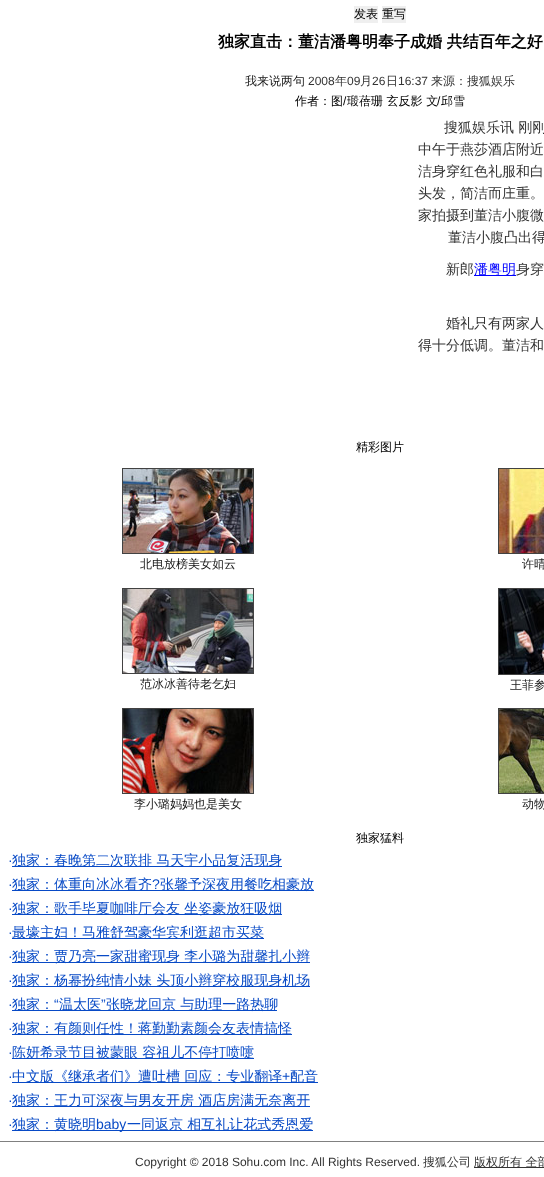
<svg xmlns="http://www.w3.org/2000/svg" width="544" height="1177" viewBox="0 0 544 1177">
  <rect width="100%" height="100%" fill="#ffffff"/>
  <rect x="354" y="6" width="24" height="17" fill="#efefef"/>
  <text x="354" y="18" font-family="WenQuanYi Zen Hei" font-size="12" font-weight="500" fill="#000000">发表</text>
  <rect x="382" y="6" width="24" height="17" fill="#efefef"/>
  <text x="382" y="18" font-family="WenQuanYi Zen Hei" font-size="12" font-weight="500" fill="#000000">重写</text>
  <text x="218" y="47" font-family="WenQuanYi Zen Hei" font-size="16" font-weight="bold" fill="#000000">独家直击：董洁潘粤明奉子成婚 共结百年之好</text>
  <text x="245" y="85" font-family="WenQuanYi Zen Hei" font-size="12" font-weight="500" fill="#191919">我来说两句</text>
  <text x="308" y="85" font-family="Liberation Sans" font-size="12" fill="#333333">2008</text>
  <text x="335" y="85" font-family="WenQuanYi Zen Hei" font-size="12" font-weight="500" fill="#333333">年</text>
  <text x="347" y="85" font-family="Liberation Sans" font-size="12" fill="#333333">09</text>
  <text x="360" y="85" font-family="WenQuanYi Zen Hei" font-size="12" font-weight="500" fill="#333333">月</text>
  <text x="372" y="85" font-family="Liberation Sans" font-size="12" fill="#333333">26</text>
  <text x="386" y="85" font-family="WenQuanYi Zen Hei" font-size="12" font-weight="500" fill="#333333">日</text>
  <text x="398" y="85" font-family="Liberation Sans" font-size="12" fill="#333333">16:37</text>
  <text x="431" y="85" font-family="WenQuanYi Zen Hei" font-size="12" font-weight="500" fill="#333333">来源：搜狐娱乐</text>
  <text x="295" y="105" font-family="WenQuanYi Zen Hei" font-size="12" font-weight="500" fill="#000000">作者：图</text>
  <text x="343" y="105" font-family="Liberation Sans" font-size="12" fill="#000000">/</text>
  <text x="347" y="105" font-family="WenQuanYi Zen Hei" font-size="12" font-weight="500" fill="#000000">瑖蓓珊 玄反影 文</text>
  <text x="437" y="105" font-family="Liberation Sans" font-size="12" fill="#000000">/</text>
  <text x="441" y="105" font-family="WenQuanYi Zen Hei" font-size="12" font-weight="500" fill="#000000">邱雪</text>
  <text x="444" y="132" font-family="WenQuanYi Zen Hei" font-size="14" font-weight="500" fill="#333333">搜狐娱乐讯 刚刚</text>
  <text x="418" y="154" font-family="WenQuanYi Zen Hei" font-size="14" font-weight="500" fill="#333333">中午于燕莎酒店附近</text>
  <text x="418" y="176" font-family="WenQuanYi Zen Hei" font-size="14" font-weight="500" fill="#333333">洁身穿红色礼服和白</text>
  <text x="418" y="198" font-family="WenQuanYi Zen Hei" font-size="14" font-weight="500" fill="#333333">头发，简洁而庄重。</text>
  <text x="418" y="220" font-family="WenQuanYi Zen Hei" font-size="14" font-weight="500" fill="#333333">家拍摄到董洁小腹微</text>
  <text x="448" y="242" font-family="WenQuanYi Zen Hei" font-size="14" font-weight="500" fill="#333333">董洁小腹凸出得</text>
  <text x="446" y="274" font-family="WenQuanYi Zen Hei" font-size="14" font-weight="500" fill="#333333">新郎</text>
  <rect x="474" y="275" width="42" height="1" fill="#0000ff"/>
  <text x="474" y="274" font-family="WenQuanYi Zen Hei" font-size="14" font-weight="500" fill="#0000ff">潘粤明</text>
  <text x="516" y="274" font-family="WenQuanYi Zen Hei" font-size="14" font-weight="500" fill="#333333">身穿</text>
  <text x="446" y="328" font-family="WenQuanYi Zen Hei" font-size="14" font-weight="500" fill="#333333">婚礼只有两家人</text>
  <text x="418" y="350" font-family="WenQuanYi Zen Hei" font-size="14" font-weight="500" fill="#333333">得十分低调。董洁和</text>
  <text x="356" y="451" font-family="WenQuanYi Zen Hei" font-size="12" font-weight="500" fill="#000000">精彩图片</text>
  <rect x="122.5" y="468.5" width="131" height="85" fill="none" stroke="#424242"/>
  <image x="123" y="469" width="130" height="84" href="img1.png"/>
  <text x="140" y="568" font-family="WenQuanYi Zen Hei" font-size="12" font-weight="500" fill="#191919">北电放榜美女如云</text>
  <rect x="498.5" y="468.5" width="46" height="85" fill="none" stroke="#424242"/>
  <image x="499" y="469" width="45" height="84" href="img2.png"/>
  <text x="522" y="568" font-family="WenQuanYi Zen Hei" font-size="12" font-weight="500" fill="#191919">许晴</text>
  <rect x="122.5" y="588.5" width="131" height="85" fill="none" stroke="#424242"/>
  <image x="123" y="589" width="130" height="84" href="img3.png"/>
  <text x="140" y="688" font-family="WenQuanYi Zen Hei" font-size="12" font-weight="500" fill="#191919">范冰冰善待老乞妇</text>
  <rect x="498.5" y="588.5" width="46" height="86" fill="none" stroke="#424242"/>
  <image x="499" y="589" width="45" height="85" href="img4.png"/>
  <text x="510" y="689" font-family="WenQuanYi Zen Hei" font-size="12" font-weight="500" fill="#191919">王菲参</text>
  <rect x="122.5" y="708.5" width="131" height="85" fill="none" stroke="#424242"/>
  <image x="123" y="709" width="130" height="84" href="img5.png"/>
  <text x="134" y="808" font-family="WenQuanYi Zen Hei" font-size="12" font-weight="500" fill="#191919">李小璐妈妈也是美女</text>
  <rect x="498.5" y="708.5" width="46" height="85" fill="none" stroke="#424242"/>
  <image x="499" y="709" width="45" height="84" href="img6.png"/>
  <text x="522" y="808" font-family="WenQuanYi Zen Hei" font-size="12" font-weight="500" fill="#191919">动物</text>
  <text x="356" y="842" font-family="WenQuanYi Zen Hei" font-size="12" font-weight="500" fill="#000000">独家猛料</text>
  <text x="8" y="865" font-family="Liberation Sans" font-size="14" fill="#084ac6">·</text>
  <rect x="12" y="866" width="270" height="1" fill="#084ac6"/>
  <text x="12" y="865" font-family="WenQuanYi Zen Hei" font-size="14" font-weight="500" fill="#084ac6">独家：春晚第二次联排 马天宇小品复活现身</text>
  <text x="8" y="889" font-family="Liberation Sans" font-size="14" fill="#084ac6">·</text>
  <rect x="12" y="890" width="302" height="1" fill="#084ac6"/>
  <text x="12" y="889" font-family="WenQuanYi Zen Hei" font-size="14" font-weight="500" fill="#084ac6">独家：体重向冰冰看齐</text>
  <text x="152" y="889" font-family="Liberation Sans" font-size="14" fill="#084ac6">?</text>
  <text x="160" y="889" font-family="WenQuanYi Zen Hei" font-size="14" font-weight="500" fill="#084ac6">张馨予深夜用餐吃相豪放</text>
  <text x="8" y="913" font-family="Liberation Sans" font-size="14" fill="#084ac6">·</text>
  <rect x="12" y="914" width="270" height="1" fill="#084ac6"/>
  <text x="12" y="913" font-family="WenQuanYi Zen Hei" font-size="14" font-weight="500" fill="#084ac6">独家：歌手毕夏咖啡厅会友 坐姿豪放狂吸烟</text>
  <text x="8" y="937" font-family="Liberation Sans" font-size="14" fill="#084ac6">·</text>
  <rect x="12" y="938" width="252" height="1" fill="#084ac6"/>
  <text x="12" y="937" font-family="WenQuanYi Zen Hei" font-size="14" font-weight="500" fill="#084ac6">最壕主妇！马雅舒驾豪华宾利逛超市买菜</text>
  <text x="8" y="961" font-family="Liberation Sans" font-size="14" fill="#084ac6">·</text>
  <rect x="12" y="962" width="298" height="1" fill="#084ac6"/>
  <text x="12" y="961" font-family="WenQuanYi Zen Hei" font-size="14" font-weight="500" fill="#084ac6">独家：贾乃亮一家甜蜜现身 李小璐为甜馨扎小辫</text>
  <text x="8" y="985" font-family="Liberation Sans" font-size="14" fill="#084ac6">·</text>
  <rect x="12" y="986" width="298" height="1" fill="#084ac6"/>
  <text x="12" y="985" font-family="WenQuanYi Zen Hei" font-size="14" font-weight="500" fill="#084ac6">独家：杨幂扮纯情小妹 头顶小辫穿校服现身机场</text>
  <rect x="12" y="1010" width="265" height="1" fill="#084ac6"/>
  <text x="12" y="1009" font-family="WenQuanYi Zen Hei" font-size="14" font-weight="500" fill="#084ac6">独家：</text>
  <text x="54" y="1009" font-family="Liberation Sans" font-size="14" fill="#084ac6">“</text>
  <text x="59" y="1009" font-family="WenQuanYi Zen Hei" font-size="14" font-weight="500" fill="#084ac6">温太医</text>
  <text x="101" y="1009" font-family="Liberation Sans" font-size="14" fill="#084ac6">”</text>
  <text x="106" y="1009" font-family="WenQuanYi Zen Hei" font-size="14" font-weight="500" fill="#084ac6">张晓龙回京 与助理一路热聊</text>
  <text x="8" y="1009" font-family="Liberation Sans" font-size="14" fill="#084ac6">·</text>
  <text x="8" y="1033" font-family="Liberation Sans" font-size="14" fill="#084ac6">·</text>
  <rect x="12" y="1034" width="280" height="1" fill="#084ac6"/>
  <text x="12" y="1033" font-family="WenQuanYi Zen Hei" font-size="14" font-weight="500" fill="#084ac6">独家：有颜则任性！蒋勤勤素颜会友表情搞怪</text>
  <text x="8" y="1057" font-family="Liberation Sans" font-size="14" fill="#084ac6">·</text>
  <rect x="12" y="1058" width="242" height="1" fill="#084ac6"/>
  <text x="12" y="1057" font-family="WenQuanYi Zen Hei" font-size="14" font-weight="500" fill="#084ac6">陈妍希录节目被蒙眼 容祖儿不停打喷嚏</text>
  <text x="8" y="1081" font-family="Liberation Sans" font-size="14" fill="#084ac6">·</text>
  <rect x="12" y="1082" width="306" height="1" fill="#084ac6"/>
  <text x="12" y="1081" font-family="WenQuanYi Zen Hei" font-size="14" font-weight="500" fill="#084ac6">中文版《继承者们》遭吐槽 回应：专业翻译</text>
  <text x="282" y="1081" font-family="Liberation Sans" font-size="14" fill="#084ac6">+</text>
  <text x="290" y="1081" font-family="WenQuanYi Zen Hei" font-size="14" font-weight="500" fill="#084ac6">配音</text>
  <text x="8" y="1105" font-family="Liberation Sans" font-size="14" fill="#084ac6">·</text>
  <rect x="12" y="1106" width="298" height="1" fill="#084ac6"/>
  <text x="12" y="1105" font-family="WenQuanYi Zen Hei" font-size="14" font-weight="500" fill="#084ac6">独家：王力可深夜与男友开房 酒店房满无奈离开</text>
  <text x="8" y="1129" font-family="Liberation Sans" font-size="14" fill="#084ac6">·</text>
  <rect x="12" y="1130" width="301" height="1" fill="#084ac6"/>
  <text x="12" y="1129" font-family="WenQuanYi Zen Hei" font-size="14" font-weight="500" fill="#084ac6">独家：黄晓明</text>
  <text x="96" y="1129" font-family="Liberation Sans" font-size="14" fill="#084ac6">baby</text>
  <text x="127" y="1129" font-family="WenQuanYi Zen Hei" font-size="14" font-weight="500" fill="#084ac6">一同返京 相互礼让花式秀恩爱</text>
  <rect x="0" y="1141" width="544" height="1" fill="#808080"/>
  <text x="135" y="1166" font-family="Liberation Sans" font-size="12" fill="#333333">Copyright © 2018 Sohu.com Inc. All Rights Reserved.</text>
  <text x="423" y="1166" font-family="WenQuanYi Zen Hei" font-size="12" font-weight="500" fill="#333333">搜狐公司</text>
  <rect x="474" y="1167" width="70" height="1" fill="#333333"/>
  <text x="474" y="1166" font-family="WenQuanYi Zen Hei" font-size="12" font-weight="500" fill="#333333">版权所有 全部</text>
</svg>
